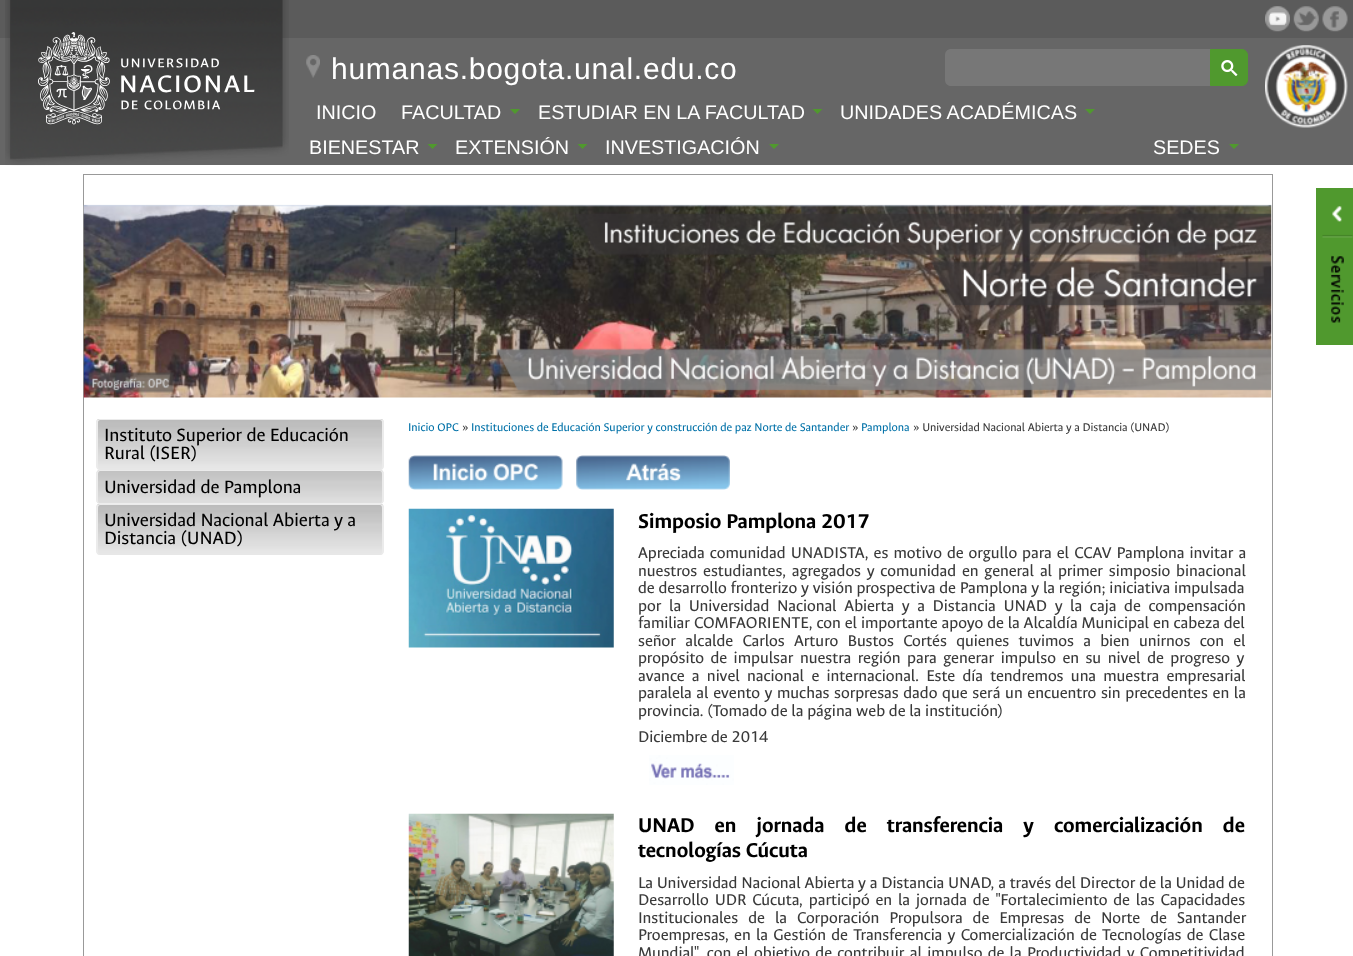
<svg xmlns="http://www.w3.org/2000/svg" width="1353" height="956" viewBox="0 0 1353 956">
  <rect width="100%" height="100%" fill="#ffffff"/>
  <rect x="0" y="38" width="1353" height="127" fill="#666666"/>
  <rect x="0" y="0" width="1353" height="38" fill="#5b5b5b"/>
  <image x="1265" y="6" width="25" height="26" href="img1.png"/>
  <image x="1293" y="6" width="26" height="26" href="img2.png"/>
  <image x="1322" y="6" width="26" height="26" href="img3.png"/>
  <image x="5" y="0" width="284" height="166" href="img4.png"/>
  <image x="38" y="32" width="217" height="93" href="img5.png"/>
  <image x="306" y="55" width="14" height="23" href="img6.png"/>
  <text x="331" y="79" font-family="Liberation Sans" font-size="30" letter-spacing="0.75" fill="#ffffff">humanas.bogota.unal.edu.co</text>
  <path d="M951 49H1220V86H951C947.5 86 945 83.5 945 80V55C945 51.5 947.5 49 951 49Z" fill="#777777"/>
  <path d="M1210.5 49.5H1242C1245 49.5 1247.5 52 1247.5 55V80C1247.5 83 1245 85.5 1242 85.5H1210.5Z" fill="#50992e" stroke="#50992e"/>
  <image x="1221" y="60" width="17" height="16" href="img7.png"/>
  <image x="1265" y="45" width="83" height="83" href="img8.png"/>
  <text x="316" y="119" font-family="Liberation Sans" font-size="19.75" fill="#ffffff">INICIO</text>
  <text x="401" y="119" font-family="Liberation Sans" font-size="19.75" fill="#ffffff">FACULTAD</text>
  <path d="M510 109H520L515 114Z" fill="#50992e"/>
  <text x="538" y="119" font-family="Liberation Sans" font-size="19.75" fill="#ffffff">ESTUDIAR EN LA FACULTAD</text>
  <path d="M812.5 109H822.5L817.5 114Z" fill="#50992e"/>
  <text x="840" y="119" font-family="Liberation Sans" font-size="19.75" fill="#ffffff">UNIDADES ACADÉMICAS</text>
  <path d="M1085 109H1095L1090 114Z" fill="#50992e"/>
  <text x="309" y="154" font-family="Liberation Sans" font-size="19.75" fill="#ffffff">BIENESTAR</text>
  <path d="M427.5 144H437.5L432.5 149Z" fill="#50992e"/>
  <text x="455" y="154" font-family="Liberation Sans" font-size="19.75" fill="#ffffff">EXTENSIÓN</text>
  <path d="M577.5 144H587.5L582.5 149Z" fill="#50992e"/>
  <text x="605" y="154" font-family="Liberation Sans" font-size="19.75" fill="#ffffff">INVESTIGACIÓN</text>
  <path d="M769 144H779L774 149Z" fill="#50992e"/>
  <text x="1153" y="154" font-family="Liberation Sans" font-size="19.75" fill="#ffffff">SEDES</text>
  <path d="M1229 144H1239L1234 149Z" fill="#50992e"/>
  <rect x="1316" y="188" width="37" height="157" fill="#50992e"/>
  <image x="1322" y="206" width="31" height="117" href="img9.png"/>
  <rect x="83.5" y="174.5" width="1189" height="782" fill="none" stroke="#999999"/>
  <image x="83" y="204" width="1189" height="194" href="img10.png"/>
  <image x="96" y="419" width="288" height="51" href="img11.png"/>
  <path d="M100 419H380C382 419 384 420 384 422V466C384 468 382 470 380 470H100C98 470 96 468 96 466V422C96 420 98 419 100 419ZM100 420H380C381 420 382 421 382 422V466C382 468 381 470 380 470H100C99 470 98 468 98 466V422C98 421 99 420 100 420Z" fill="#ebebeb" fill-rule="evenodd"/>
  <text x="104" y="441" font-family="Ancizar Sans" font-size="20" fill="#000000">Instituto Superior de Educación</text>
  <text x="104" y="459" font-family="Ancizar Sans" font-size="20" fill="#000000">Rural (ISER)</text>
  <image x="96" y="470" width="288" height="34" href="img12.png"/>
  <path d="M100 470H380C382 470 384 472 384 474V500C384 502 382 504 380 504H100C98 504 96 502 96 500V474C96 472 98 470 100 470ZM100 471H380C381 471 382 472 382 474V500C382 502 381 504 380 504H100C99 504 98 502 98 500V474C98 472 99 471 100 471Z" fill="#ebebeb" fill-rule="evenodd"/>
  <text x="104" y="493" font-family="Ancizar Sans" font-size="20" fill="#000000">Universidad de Pamplona</text>
  <image x="96" y="504" width="288" height="51" href="img11.png"/>
  <path d="M100 504H380C382 504 384 505 384 508V551C384 553 382 555 380 555H100C98 555 96 553 96 551V508C96 505 98 504 100 504ZM100 505H380C381 505 382 506 382 508V551C382 553 381 555 380 555H100C99 555 98 553 98 551V508C98 506 99 505 100 505Z" fill="#ebebeb" fill-rule="evenodd"/>
  <text x="104" y="526" font-family="Ancizar Sans" font-size="20" fill="#000000">Universidad Nacional Abierta y a</text>
  <text x="104" y="544" font-family="Ancizar Sans" font-size="20" fill="#000000">Distancia (UNAD)</text>
  <text x="408" y="431" font-family="Ancizar Sans" font-size="12.5" fill="#0071a8">Inicio OPC</text>
  <text x="462" y="431" font-family="Ancizar Sans" font-size="12.5" fill="#3a3a3a">»</text>
  <text x="471" y="431" font-family="Ancizar Sans" font-size="12.5" fill="#0071a8">Instituciones de Educación Superior y construcción de paz Norte de Santander</text>
  <text x="852" y="431" font-family="Ancizar Sans" font-size="12.5" fill="#3a3a3a">»</text>
  <text x="861" y="431" font-family="Ancizar Sans" font-size="12.5" fill="#0071a8">Pamplona</text>
  <text x="913" y="431" font-family="Ancizar Sans" font-size="12.5" fill="#3a3a3a">» Universidad Nacional Abierta y a Distancia (UNAD)</text>
  <image x="408" y="455" width="155" height="35" href="img13.png"/>
  <image x="576" y="455" width="154" height="35" href="img14.png"/>
  <image x="408" y="508" width="206" height="140" href="img15.png"/>
  <text x="638" y="528" font-family="Ancizar Sans" font-size="22.5" font-weight="bold" fill="#000000">Simposio Pamplona 2017</text>
  <text x="638" y="558" word-spacing="1.25" font-family="Ancizar Sans" font-size="17.5" fill="#3a3a3a">Apreciada comunidad UNADISTA, es motivo de orgullo para el CCAV Pamplona invitar a</text>
  <text x="638" y="576" word-spacing="2" font-family="Ancizar Sans" font-size="17.5" fill="#3a3a3a">nuestros estudiantes, agregados y comunidad en general al primer simposio binacional</text>
  <text x="638" y="593" font-family="Ancizar Sans" font-size="17.5" fill="#3a3a3a">de desarrollo fronterizo y visión prospectiva de Pamplona y la región; iniciativa impulsada</text>
  <text x="638" y="611" word-spacing="3.9" font-family="Ancizar Sans" font-size="17.5" fill="#3a3a3a">por la Universidad Nacional Abierta y a Distancia UNAD y la caja de compensación</text>
  <text x="638" y="628" word-spacing="0.1" font-family="Ancizar Sans" font-size="17.5" fill="#3a3a3a">familiar COMFAORIENTE, con el importante apoyo de la Alcaldía Municipal en cabeza del</text>
  <text x="638" y="646" word-spacing="5.5" font-family="Ancizar Sans" font-size="17.5" fill="#3a3a3a">señor alcalde Carlos Arturo Bustos Cortés quienes tuvimos a bien unirnos con el</text>
  <text x="638" y="663" word-spacing="2.75" font-family="Ancizar Sans" font-size="17.5" fill="#3a3a3a">propósito de impulsar nuestra región para generar impulso en su nivel de progreso y</text>
  <text x="638" y="681" word-spacing="3.5" font-family="Ancizar Sans" font-size="17.5" fill="#3a3a3a">avance a nivel nacional e internacional. Este día tendremos una muestra empresarial</text>
  <text x="638" y="698" word-spacing="0.9" font-family="Ancizar Sans" font-size="17.5" fill="#3a3a3a">paralela al evento y muchas sorpresas dado que será un encuentro sin precedentes en la</text>
  <text x="638" y="716" font-family="Ancizar Sans" font-size="17.5" fill="#3a3a3a">provincia. (Tomado de la página web de la institución)</text>
  <text x="638" y="742" font-family="Ancizar Sans" font-size="17.5" fill="#3a3a3a">Diciembre de 2014</text>
  <image x="649" y="755" width="85" height="30" href="img16.png"/>
  <image x="408" y="813" width="206" height="143" href="img17.png"/>
  <text x="638" y="832" word-spacing="15.25" font-family="Ancizar Sans" font-size="22.5" font-weight="bold" fill="#000000">UNAD en jornada de transferencia y comercialización de</text>
  <text x="638" y="857" font-family="Ancizar Sans" font-size="22.5" font-weight="bold" fill="#000000">tecnologías Cúcuta</text>
  <text x="638" y="888" font-family="Ancizar Sans" font-size="17.5" fill="#3a3a3a">La Universidad Nacional Abierta y a Distancia UNAD, a través del Director de la Unidad de</text>
  <text x="638" y="905" word-spacing="2.1" font-family="Ancizar Sans" font-size="17.5" fill="#3a3a3a">Desarrollo UDR Cúcuta, participó en la jornada de "Fortalecimiento de las Capacidades</text>
  <text x="638" y="923" word-spacing="6.25" font-family="Ancizar Sans" font-size="17.5" fill="#3a3a3a">Institucionales de la Corporación Propulsora de Empresas de Norte de Santander</text>
  <text x="638" y="940" word-spacing="1.5" font-family="Ancizar Sans" font-size="17.5" fill="#3a3a3a">Proempresas, en la Gestión de Transferencia y Comercialización de Tecnologías de Clase</text>
  <text x="638" y="958" word-spacing="1.5" font-family="Ancizar Sans" font-size="17.5" fill="#3a3a3a">Mundial", con el objetivo de contribuir al impulso de la Productividad y Competitividad</text>
</svg>
